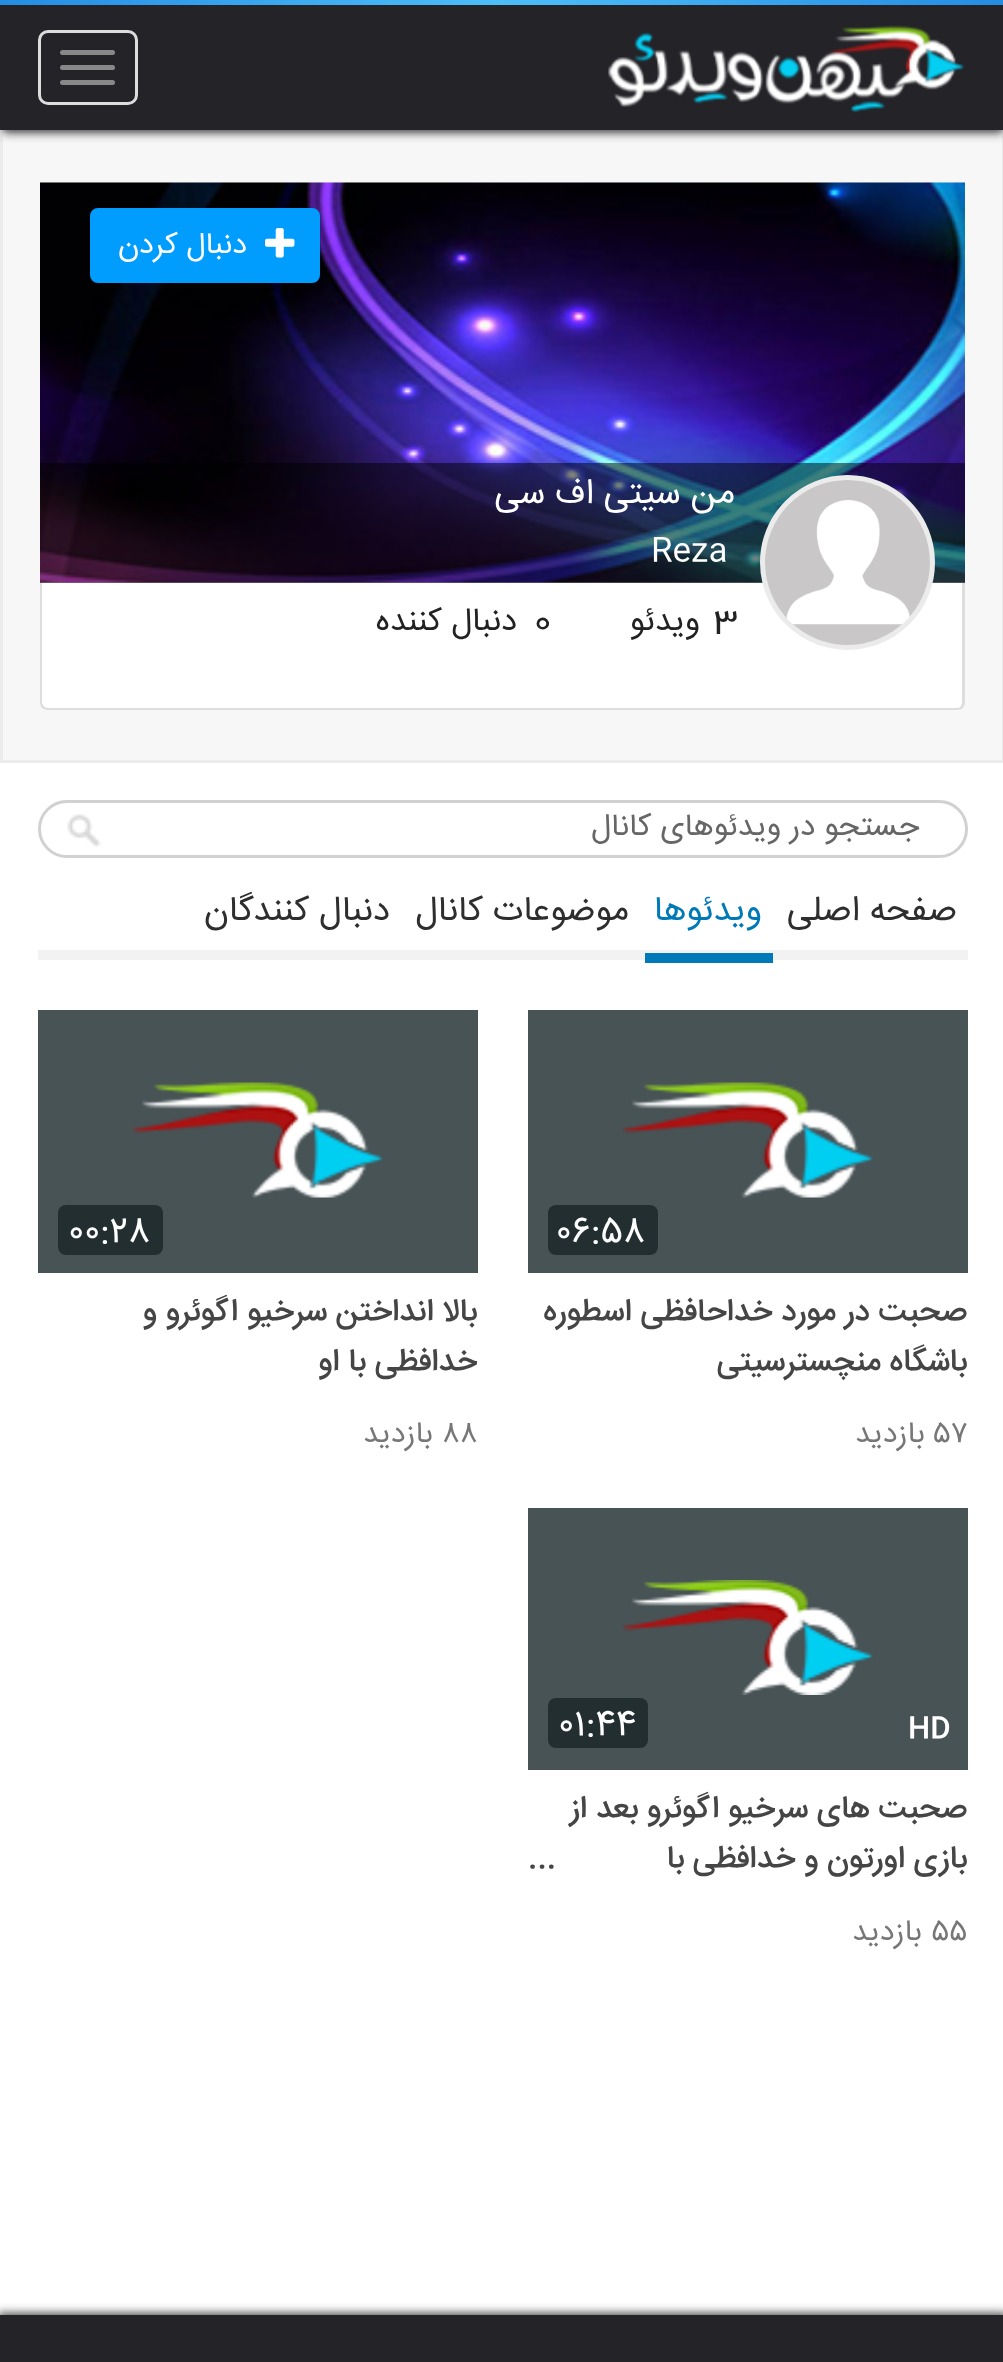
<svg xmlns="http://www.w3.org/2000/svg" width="1003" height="2362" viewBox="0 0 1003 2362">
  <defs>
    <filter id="blur1" x="-50%" y="-200%" width="200%" height="500%"><feGaussianBlur stdDeviation="5"/></filter>
    <linearGradient id="g1" gradientUnits="userSpaceOnUse" x1="0" y1="2.5" x2="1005" y2="2.5"><stop offset="0" stop-color="#248de4"/><stop offset="0.5" stop-color="#4cbff9"/><stop offset="1" stop-color="#248de4"/></linearGradient>
  </defs>
  <rect width="100%" height="100%" fill="#ffffff"/>
  <rect x="1.5" y="131.5" width="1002" height="630" fill="#f7f7f7" stroke="#ebebeb" stroke-width="3"/>
  <rect x="3" y="8" width="1000" height="125" fill="#474747" filter="url(#blur1)"/>
  <rect x="0" y="5" width="1003" height="125" fill="#232328"/>
  <rect x="0" y="0" width="1003" height="5" fill="url(#g1)"/>
  <image x="608" y="25" width="357" height="88" href="img1.png"/>
  <rect x="39.5" y="31.5" width="97" height="72" rx="8.5" fill="none" stroke="#dddddd" stroke-width="3"/>
  <rect x="60" y="50" width="55" height="5" rx="2.5" fill="#888888"/>
  <rect x="60" y="65" width="55" height="5" rx="2.5" fill="#888888"/>
  <rect x="60" y="80" width="55" height="5" rx="2.5" fill="#888888"/>
  <path d="M40 583H965V702C965 706.5 961.5 710 957 710H48C43.5 710 40 706.5 40 702Z" fill="#ffffff"/>
  <path d="M40 582H965V702C965 707 962 710 958 710H48C43 710 40 707 40 702ZM42 582H962V702C962 705 960 708 958 708H48C45 708 42 705 42 702Z" fill="#dddddd" fill-rule="evenodd"/>
  <image x="40" y="182" width="925" height="401" href="img3.png"/>
  <image x="40" y="182" width="925" height="401" href="img4.png"/>
  <rect x="40" y="463" width="925" height="120" fill="#000000" fill-opacity="0.5"/>
  <circle cx="847.5" cy="562.5" r="85" fill="#f7f7f7" stroke="#ebebeb" stroke-width="5"/>
  <image x="765" y="480" width="165" height="165" href="img2.png"/>
  <rect x="91.5" y="209.5" width="227" height="72" rx="6.5" fill="#009dff" stroke="#009dff" stroke-width="3"/>
  <image x="265" y="228" width="30" height="30" href="img5.png"/>
  <text x="247" y="253" font-family="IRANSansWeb" font-size="30" direction="rtl" fill="#ffffff">دنبال کردن</text>
  <text x="735" y="503" font-family="IRANSansWeb" font-size="35" direction="rtl" fill="#ffffff">من سیتی اف سی</text>
  <text x="651" y="560" font-family="IRANSansWeb" font-size="32.5" fill="#ffffff">Reza</text>
  <text x="714" y="630" font-family="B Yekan" font-size="40" fill="#222222">3</text>
  <text x="700" y="630" font-family="IRANSansWeb" font-size="32.5" direction="rtl" fill="#222222">ویدئو</text>
  <text x="531" y="630" font-family="B Yekan" font-size="40" fill="#222222">0</text>
  <text x="517" y="630" font-family="IRANSansWeb" font-size="32.5" direction="rtl" fill="#222222">دنبال کننده</text>
  <image x="67" y="814" width="34" height="34" href="img6.png"/>
  <rect x="39.5" y="801.5" width="927" height="55" rx="27.5" fill="none" stroke="#d1d1d1" stroke-width="3"/>
  <text x="919" y="835" font-family="IRANSansWeb" font-size="31.25" direction="rtl" fill="#666666">جستجو در ویدئوهای کانال</text>
  <rect x="38" y="950" width="930" height="10" fill="#f2f2f2"/>
  <text x="957" y="920" font-family="IRANSansWeb" font-size="35" direction="rtl" fill="#2e2e2e">صفحه اصلی</text>
  <text x="762" y="920" font-family="IRANSansWeb" font-size="35" direction="rtl" fill="#0079b8">ویدئوها</text>
  <rect x="645" y="953" width="128" height="10" fill="#0079b8"/>
  <text x="629" y="920" font-family="IRANSansWeb" font-size="35" direction="rtl" fill="#2e2e2e">موضوعات کانال</text>
  <text x="390" y="920" font-family="IRANSansWeb" font-size="35" direction="rtl" fill="#2e2e2e">دنبال کنندگان</text>
  <rect x="528" y="1010" width="440" height="263" fill="#485356"/>
  <image x="622" y="1082" width="251" height="116" href="img7.png"/>
  <rect x="548" y="1205" width="110" height="50" rx="8" fill="#232e30"/>
  <text x="558" y="1242" font-family="IRANSansWeb" font-size="37.5" fill="#ffffff">۰۶:۵۸</text>
  <text x="967" y="1320" font-family="IRANSansWeb" font-size="31.25" font-weight="500" direction="rtl" fill="#454545">صحبت در مورد خداحافظی اسطوره</text>
  <text x="967" y="1370" font-family="IRANSansWeb" font-size="31.25" font-weight="500" direction="rtl" fill="#454545">باشگاه منچسترسیتی</text>
  <text x="934" y="1442" font-family="IRANSansWeb" font-size="30" fill="#777777">۵۷</text>
  <text x="925" y="1442" font-family="IRANSansWeb" font-size="30" direction="rtl" fill="#777777">بازدید</text>
  <rect x="38" y="1010" width="440" height="263" fill="#485356"/>
  <image x="132" y="1082" width="251" height="116" href="img8.png"/>
  <rect x="58" y="1205" width="105" height="50" rx="8" fill="#232e30"/>
  <text x="68" y="1242" font-family="IRANSansWeb" font-size="37.5" fill="#ffffff">۰۰:۲۸</text>
  <text x="477" y="1320" font-family="IRANSansWeb" font-size="31.25" font-weight="500" direction="rtl" fill="#454545">بالا انداختن سرخیو اگوئرو و</text>
  <text x="477" y="1370" font-family="IRANSansWeb" font-size="31.25" font-weight="500" direction="rtl" fill="#454545">خدافظی با او</text>
  <text x="442" y="1442" font-family="IRANSansWeb" font-size="30" fill="#777777">۸۸</text>
  <text x="433" y="1442" font-family="IRANSansWeb" font-size="30" direction="rtl" fill="#777777">بازدید</text>
  <rect x="528" y="1508" width="440" height="262" fill="#485356"/>
  <image x="622" y="1580" width="251" height="115" href="img9.png"/>
  <text x="908" y="1737" font-family="IRANSansWeb" font-size="29" font-weight="500" fill="#ffffff">HD</text>
  <rect x="548" y="1698" width="100" height="50" rx="8" fill="#232e30"/>
  <text x="558" y="1735" font-family="IRANSansWeb" font-size="37.5" fill="#ffffff">۰۱:۴۴</text>
  <text x="967" y="1817" font-family="IRANSansWeb" font-size="31.25" font-weight="500" direction="rtl" fill="#454545">صحبت های سرخیو اگوئرو بعد از</text>
  <text x="967" y="1867" font-family="IRANSansWeb" font-size="31.25" font-weight="500" direction="rtl" fill="#454545">بازی اورتون و خدافظی با</text>
  <text x="528" y="1867" font-family="IRANSansWeb" font-size="31.25" font-weight="500" fill="#454545">...</text>
  <text x="930" y="1940" font-family="IRANSansWeb" font-size="30" fill="#777777">۵۵</text>
  <text x="922" y="1940" font-family="IRANSansWeb" font-size="30" direction="rtl" fill="#777777">بازدید</text>
  <rect x="-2" y="2313" width="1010" height="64" fill="#474747" filter="url(#blur1)"/>
  <rect x="0" y="2315" width="1003" height="47" fill="#232328"/>
</svg>
